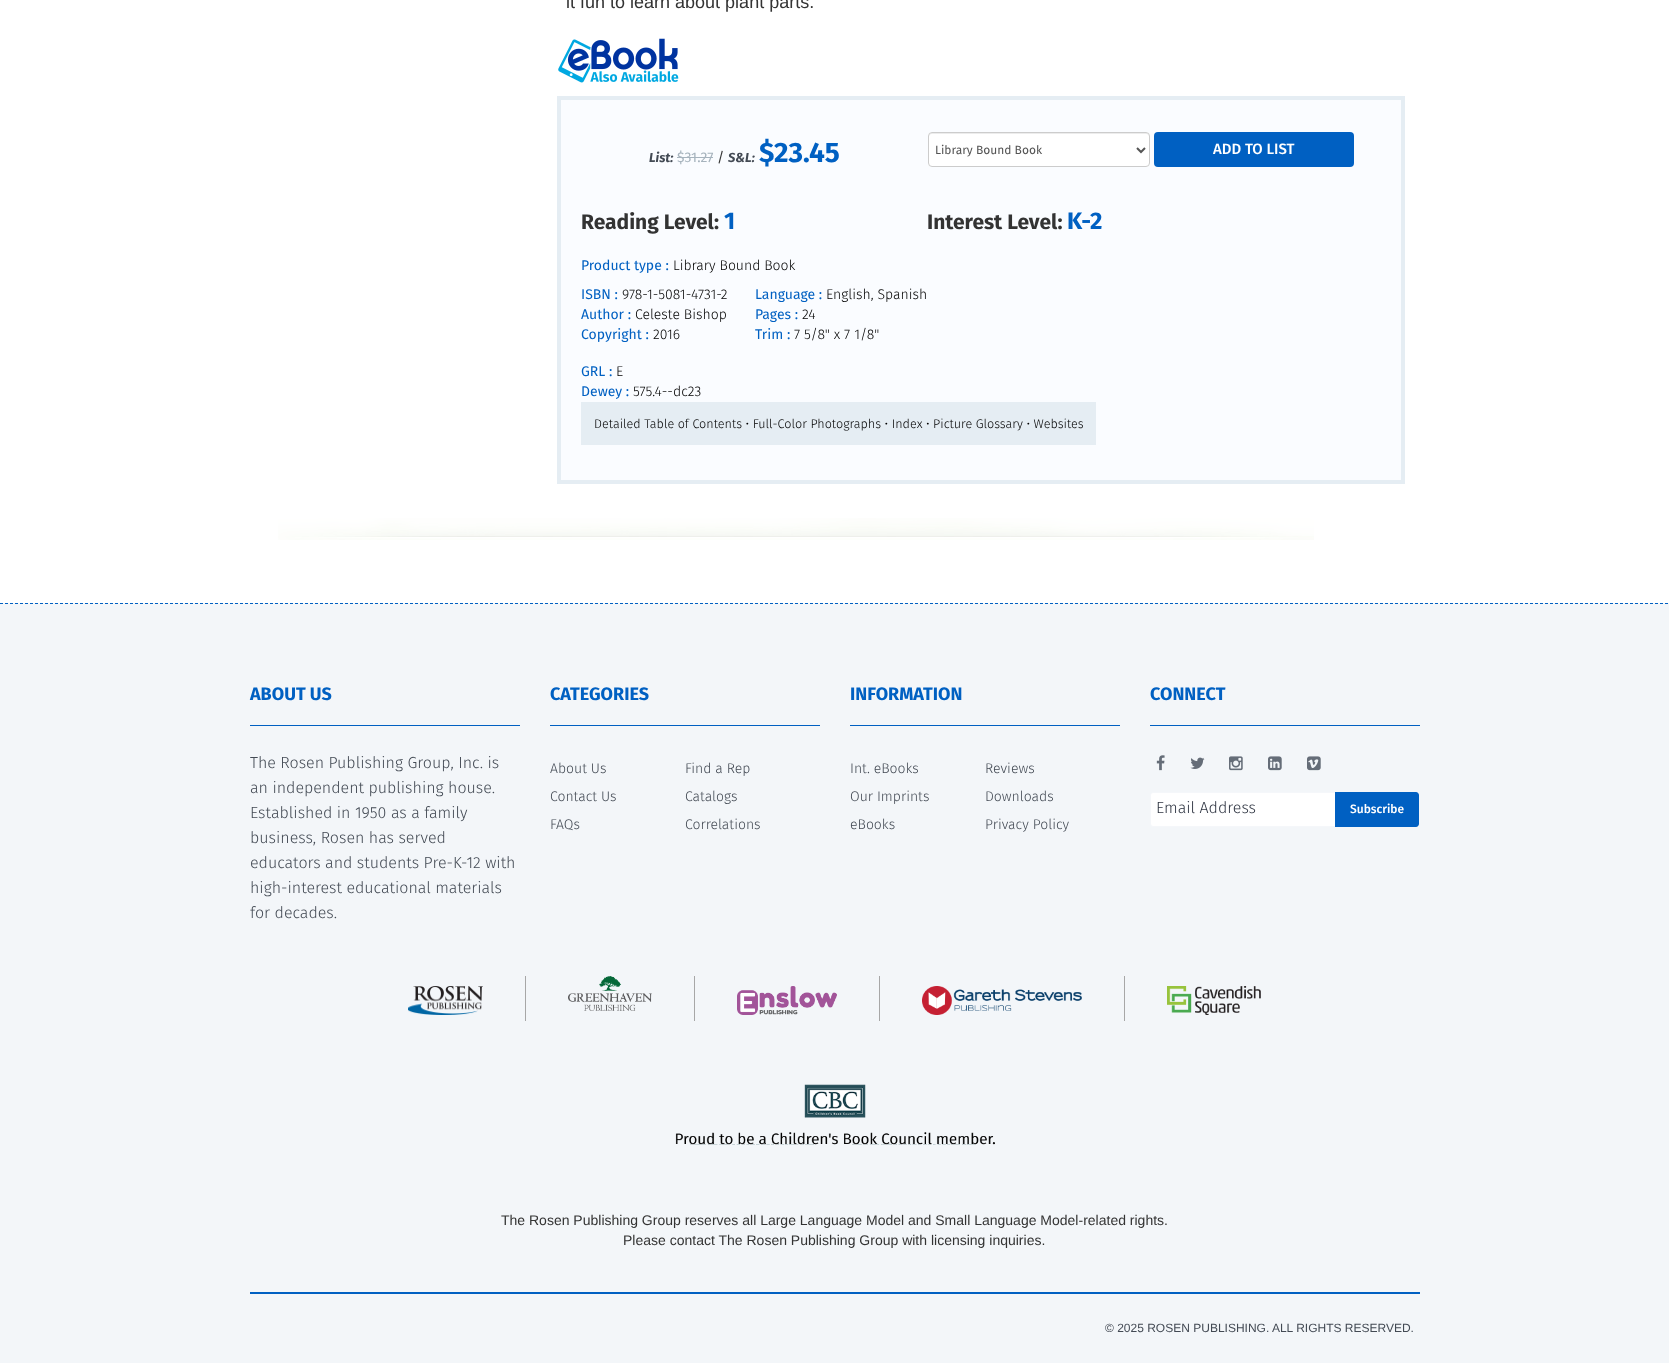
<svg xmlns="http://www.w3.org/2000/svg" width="1669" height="1363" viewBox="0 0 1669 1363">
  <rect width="100%" height="100%" fill="#ffffff"/>
  <text x="566" y="8" font-family="Liberation Sans" font-size="18" fill="#333333">it fun to learn about plant parts.</text>
  <image x="558" y="38" width="121" height="45" href="img1.png"/>
  <rect x="561" y="100" width="840" height="380" fill="#fafcff"/>
  <rect x="557" y="96" width="848" height="4" fill="#e5edf3"/>
  <rect x="1401" y="96" width="4" height="388" fill="#e5edf3"/>
  <rect x="557" y="96" width="4" height="81" fill="#e5edf3"/>
  <text x="649" y="162" font-family="Fira Sans" font-size="13" font-weight="bold" font-style="italic" fill="#434a54">List:</text>
  <text x="677" y="162" font-family="Fira Sans" font-size="14" fill="#a6b3bd">$31.27</text>
  <rect x="677" y="157" width="36" height="1" fill="#a6b3bd"/>
  <text x="717" y="162" font-family="Fira Sans" font-size="14" fill="#333333">/</text>
  <text x="728" y="162" font-family="Fira Sans" font-size="13" font-weight="bold" font-style="italic" fill="#434a54">S&amp;L:</text>
  <text x="759" y="162" font-family="Fira Sans" font-size="28" font-weight="bold" fill="#0060c2">$23.45</text>
  <rect x="928" y="132" width="222" height="35" rx="4" fill="#ffffff"/>
  <path d="M932 134H1146C1148 134 1149 135 1149 137V136C1149 134 1148 133 1146 133H932C930 133 929 134 929 136V137C929 135 930 134 932 134Z" fill="#ececec"/>
  <rect x="928.5" y="132.5" width="221" height="34" rx="3.5" fill="none" stroke="#cccccc"/>
  <path d="M1137 148L1141 152L1145 148" fill="none" stroke="#555555" stroke-width="2"/>
  <text x="935" y="154" font-family="Fira Sans" font-size="12" fill="#555555">Library Bound Book</text>
  <rect x="1154" y="132" width="200" height="35" rx="4" fill="#0060c2"/>
  <text x="1213" y="154" font-family="Fira Sans" font-size="15" font-weight="500" fill="#ffffff">ADD TO LIST</text>
  <rect x="557" y="480" width="848" height="4" fill="#e5edf3"/>
  <rect x="557" y="177" width="4" height="307" fill="#e5edf3"/>
  <text x="581" y="229" font-family="Fira Sans" font-size="21" font-weight="bold" fill="#333333">Reading Level:</text>
  <text x="724" y="229" font-family="Fira Sans" font-size="24" font-weight="bold" fill="#0060c2">1</text>
  <text x="927" y="229" font-family="Fira Sans" font-size="21" font-weight="bold" fill="#333333">Interest Level:</text>
  <text x="1067" y="229" font-family="Fira Sans" font-size="24" font-weight="bold" fill="#0060c2">K-2</text>
  <text x="581" y="270" font-family="Fira Sans" font-size="14" fill="#0060c2">Product type :</text>
  <text x="673" y="270" font-family="Fira Sans" font-size="14" font-weight="300" fill="#000000">Library Bound Book</text>
  <text x="581" y="299" font-family="Fira Sans" font-size="14" fill="#0060c2">ISBN :</text>
  <text x="622" y="299" font-family="Fira Sans" font-size="14" font-weight="300" fill="#000000">978-1-5081-4731-2</text>
  <text x="581" y="319" font-family="Fira Sans" font-size="14" fill="#0060c2">Author :</text>
  <text x="635" y="319" font-family="Fira Sans" font-size="14" font-weight="300" fill="#000000">Celeste Bishop</text>
  <text x="581" y="339" font-family="Fira Sans" font-size="14" fill="#0060c2">Copyright :</text>
  <text x="653" y="339" font-family="Fira Sans" font-size="14" font-weight="300" fill="#000000">2016</text>
  <text x="755" y="299" font-family="Fira Sans" font-size="14" fill="#0060c2">Language :</text>
  <text x="826" y="299" font-family="Fira Sans" font-size="14" font-weight="300" fill="#000000">English, Spanish</text>
  <text x="755" y="319" font-family="Fira Sans" font-size="14" fill="#0060c2">Pages :</text>
  <text x="802" y="319" font-family="Fira Sans" font-size="14" font-weight="300" fill="#000000">24</text>
  <text x="755" y="339" font-family="Fira Sans" font-size="14" fill="#0060c2">Trim :</text>
  <text x="794" y="339" font-family="Fira Sans" font-size="14" font-weight="300" fill="#000000">7 5/8" x 7 1/8"</text>
  <text x="581" y="376" font-family="Fira Sans" font-size="14" fill="#0060c2">GRL :</text>
  <text x="616" y="376" font-family="Fira Sans" font-size="14" font-weight="300" fill="#000000">E</text>
  <text x="581" y="396" font-family="Fira Sans" font-size="14" fill="#0060c2">Dewey :</text>
  <text x="633" y="396" font-family="Fira Sans" font-size="14" font-weight="300" fill="#000000">575.4--dc23</text>
  <rect x="581" y="402" width="515" height="43" fill="#e5edf3"/>
  <text x="594" y="428" font-family="Fira Sans" font-size="12.6" font-weight="300" fill="#000000">Detailed Table of Contents • Full-Color Photographs • Index • Picture Glossary • Websites</text>
  <image x="278" y="518" width="1036" height="22" href="img2.png"/>
  <rect x="0" y="603" width="1669" height="760" fill="#f3f6f9"/>
  <path d="M0 603.5H1669" fill="none" stroke="#0060c2" stroke-dasharray="3 2"/>
  <rect x="250" y="725" width="270" height="1" fill="#0060c2"/>
  <text x="250" y="700" font-family="Fira Sans" font-size="18" font-weight="bold" fill="#0060c2">ABOUT US</text>
  <text x="250" y="768" font-family="Fira Sans" font-size="16" font-weight="300" fill="#434a54">The Rosen Publishing Group, Inc. is</text>
  <text x="250" y="793" font-family="Fira Sans" font-size="16" font-weight="300" fill="#434a54">an independent publishing house.</text>
  <text x="250" y="818" font-family="Fira Sans" font-size="16" font-weight="300" fill="#434a54">Established in 1950 as a family</text>
  <text x="250" y="843" font-family="Fira Sans" font-size="16" font-weight="300" fill="#434a54">business, Rosen has served</text>
  <text x="250" y="868" font-family="Fira Sans" font-size="16" font-weight="300" fill="#434a54">educators and students Pre-K-12 with</text>
  <text x="250" y="893" font-family="Fira Sans" font-size="16" font-weight="300" fill="#434a54">high-interest educational materials</text>
  <text x="250" y="918" font-family="Fira Sans" font-size="16" font-weight="300" fill="#434a54">for decades.</text>
  <rect x="550" y="725" width="270" height="1" fill="#0060c2"/>
  <text x="550" y="700" font-family="Fira Sans" font-size="18" font-weight="bold" fill="#0060c2">CATEGORIES</text>
  <text x="550" y="773" font-family="Fira Sans" font-size="14" font-weight="300" fill="#434a54">About Us</text>
  <text x="550" y="801" font-family="Fira Sans" font-size="14" font-weight="300" fill="#434a54">Contact Us</text>
  <text x="550" y="829" font-family="Fira Sans" font-size="14" font-weight="300" fill="#434a54">FAQs</text>
  <text x="685" y="773" font-family="Fira Sans" font-size="14" font-weight="300" fill="#434a54">Find a Rep</text>
  <text x="685" y="801" font-family="Fira Sans" font-size="14" font-weight="300" fill="#434a54">Catalogs</text>
  <text x="685" y="829" font-family="Fira Sans" font-size="14" font-weight="300" fill="#434a54">Correlations</text>
  <rect x="850" y="725" width="270" height="1" fill="#0060c2"/>
  <text x="850" y="700" font-family="Fira Sans" font-size="18" font-weight="bold" fill="#0060c2">INFORMATION</text>
  <text x="850" y="773" font-family="Fira Sans" font-size="14" font-weight="300" fill="#434a54">Int. eBooks</text>
  <text x="850" y="801" font-family="Fira Sans" font-size="14" font-weight="300" fill="#434a54">Our Imprints</text>
  <text x="850" y="829" font-family="Fira Sans" font-size="14" font-weight="300" fill="#434a54">eBooks</text>
  <text x="985" y="773" font-family="Fira Sans" font-size="14" font-weight="300" fill="#434a54">Reviews</text>
  <text x="985" y="801" font-family="Fira Sans" font-size="14" font-weight="300" fill="#434a54">Downloads</text>
  <text x="985" y="829" font-family="Fira Sans" font-size="14" font-weight="300" fill="#434a54">Privacy Policy</text>
  <rect x="1150" y="725" width="270" height="1" fill="#0060c2"/>
  <text x="1150" y="700" font-family="Fira Sans" font-size="18" font-weight="bold" fill="#0060c2">CONNECT</text>
  <image x="1156" y="755" width="9" height="16" href="img3.png"/>
  <image x="1190" y="757" width="15" height="12" href="img4.png"/>
  <image x="1229" y="756" width="14" height="15" href="img5.png"/>
  <image x="1268" y="756" width="14" height="15" href="img6.png"/>
  <image x="1307" y="756" width="14" height="15" href="img7.png"/>
  <rect x="1150.5" y="792.5" width="266" height="34" rx="2.5" fill="#ffffff" stroke="#f5f7fa"/>
  <text x="1156" y="813" font-family="Fira Sans" font-size="16" font-weight="300" fill="#2f3542">Email Address</text>
  <path d="M1335 792H1416C1417.5 792 1419 793.5 1419 795V824C1419 825.5 1417.5 827 1416 827H1335Z" fill="#0060c2"/>
  <text x="1350" y="813" font-family="Fira Sans" font-size="12" font-weight="500" fill="#ffffff">Subscribe</text>
  <rect x="525" y="976" width="1" height="45" fill="#a7a7a7"/>
  <image x="408" y="986" width="75" height="29" href="img8.png"/>
  <rect x="694" y="976" width="1" height="45" fill="#a7a7a7"/>
  <image x="568" y="976" width="84" height="35" href="img9.png"/>
  <rect x="879" y="976" width="1" height="45" fill="#a7a7a7"/>
  <image x="737" y="986" width="100" height="29" href="img10.png"/>
  <rect x="1124" y="976" width="1" height="45" fill="#a7a7a7"/>
  <image x="922" y="986" width="160" height="29" href="img11.png"/>
  <image x="1167" y="986" width="94" height="29" href="img12.png"/>
  <image x="675" y="1084" width="320" height="61" href="img13.png"/>
  <text x="501" y="1225" font-family="Liberation Sans" font-size="14" fill="#333333">The Rosen Publishing Group reserves all Large Language Model and Small Language Model-related rights.</text>
  <text x="623" y="1245" font-family="Liberation Sans" font-size="14" fill="#333333">Please contact The Rosen Publishing Group with licensing inquiries.</text>
  <rect x="250" y="1292" width="1170" height="2" fill="#0060c2"/>
  <text x="1105" y="1332" font-family="Liberation Sans" font-size="12" fill="#434a54">© 2025 ROSEN PUBLISHING. ALL RIGHTS RESERVED.</text>
</svg>
